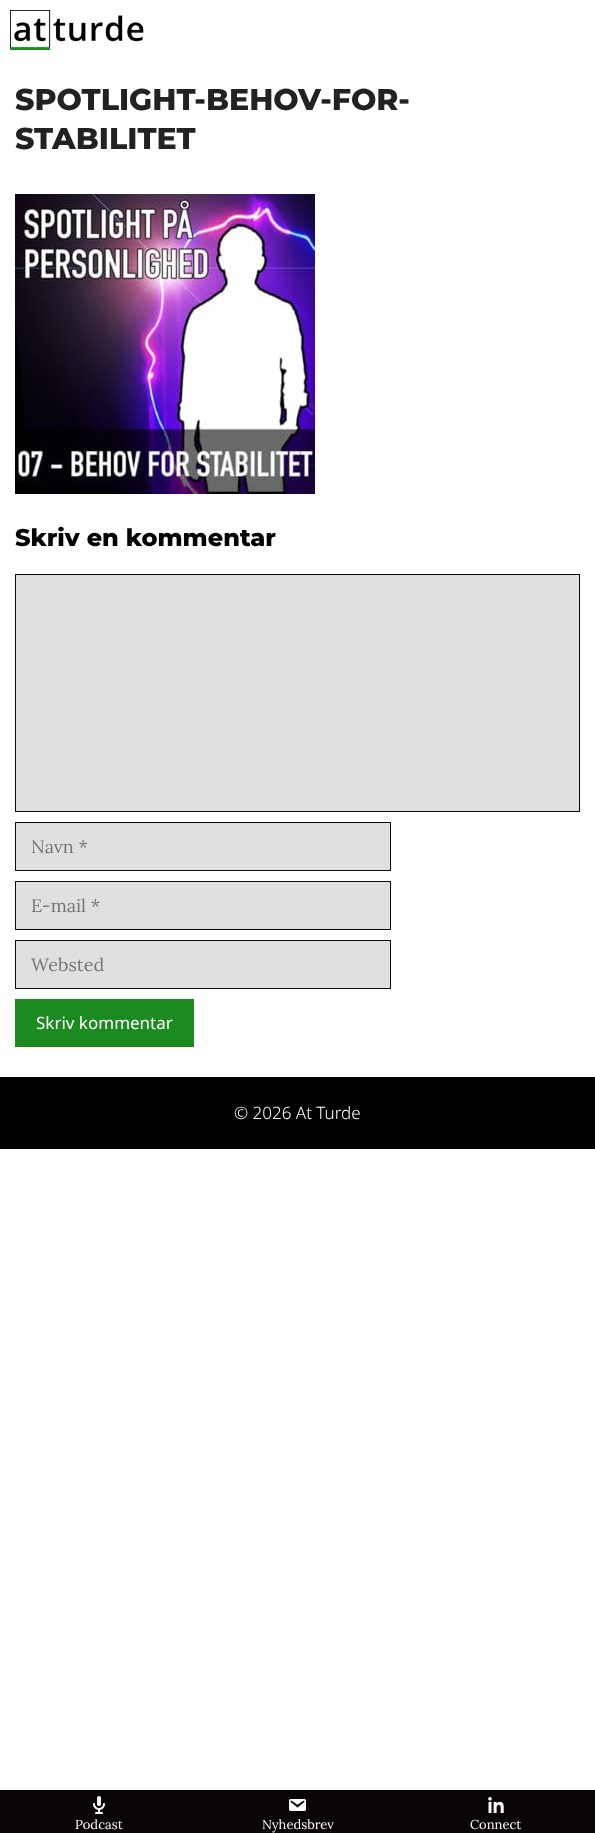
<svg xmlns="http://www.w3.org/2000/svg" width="595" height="1833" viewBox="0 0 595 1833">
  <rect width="100%" height="100%" fill="#ffffff"/>
  <image x="10" y="10" width="134" height="40" href="img1.png"/>
  <text x="15" y="110" font-family="Montserrat" font-size="30" font-weight="800" fill="#222222">SPOTLIGHT-BEHOV-FOR-</text>
  <text x="15" y="149" font-family="Montserrat" font-size="30" font-weight="800" fill="#222222">STABILITET</text>
  <image x="15" y="194" width="300" height="300" href="img2.png"/>
  <text x="15" y="546" font-family="Montserrat" font-size="24" font-weight="800" fill="#000000">Skriv en kommentar</text>
  <rect x="15.5" y="574.5" width="564" height="237" fill="#e0e0e0" stroke="#0a0a0a"/>
  <rect x="15.5" y="822.5" width="375" height="48" fill="#e0e0e0" stroke="#0a0a0a"/>
  <text x="31" y="853" font-family="Lora" font-size="18" fill="#757575">Navn *</text>
  <rect x="15.5" y="881.5" width="375" height="48" fill="#e0e0e0" stroke="#0a0a0a"/>
  <text x="31" y="912" font-family="Lora" font-size="18" fill="#757575">E-mail *</text>
  <rect x="15.5" y="940.5" width="375" height="48" fill="#e0e0e0" stroke="#0a0a0a"/>
  <text x="31" y="971" font-family="Lora" font-size="18" fill="#757575">Websted</text>
  <rect x="15" y="999" width="179" height="48" fill="#1b8b21"/>
  <text x="36" y="1029" font-family="Noto Sans" font-size="17" fill="#ffffff">Skriv kommentar</text>
  <rect x="0" y="1077" width="595" height="72" fill="#000000"/>
  <text x="234" y="1119" font-family="Noto Sans" font-size="17" font-weight="300" fill="#ffffff">© 2026 At Turde</text>
  <rect x="0" y="1790" width="595" height="43" fill="#0a0505"/>
  <image x="93" y="1796" width="12" height="18" href="img3.png"/>
  <text x="75" y="1829" font-family="Lora" font-size="13" fill="#ffffff">Podcast</text>
  <image x="289" y="1799" width="17" height="12" href="img4.png"/>
  <text x="262" y="1829" font-family="Lora" font-size="13" fill="#ffffff">Nyhedsbrev</text>
  <image x="488" y="1797" width="16" height="16" href="img5.png"/>
  <text x="470" y="1829" font-family="Lora" font-size="13" fill="#ffffff">Connect</text>
</svg>
